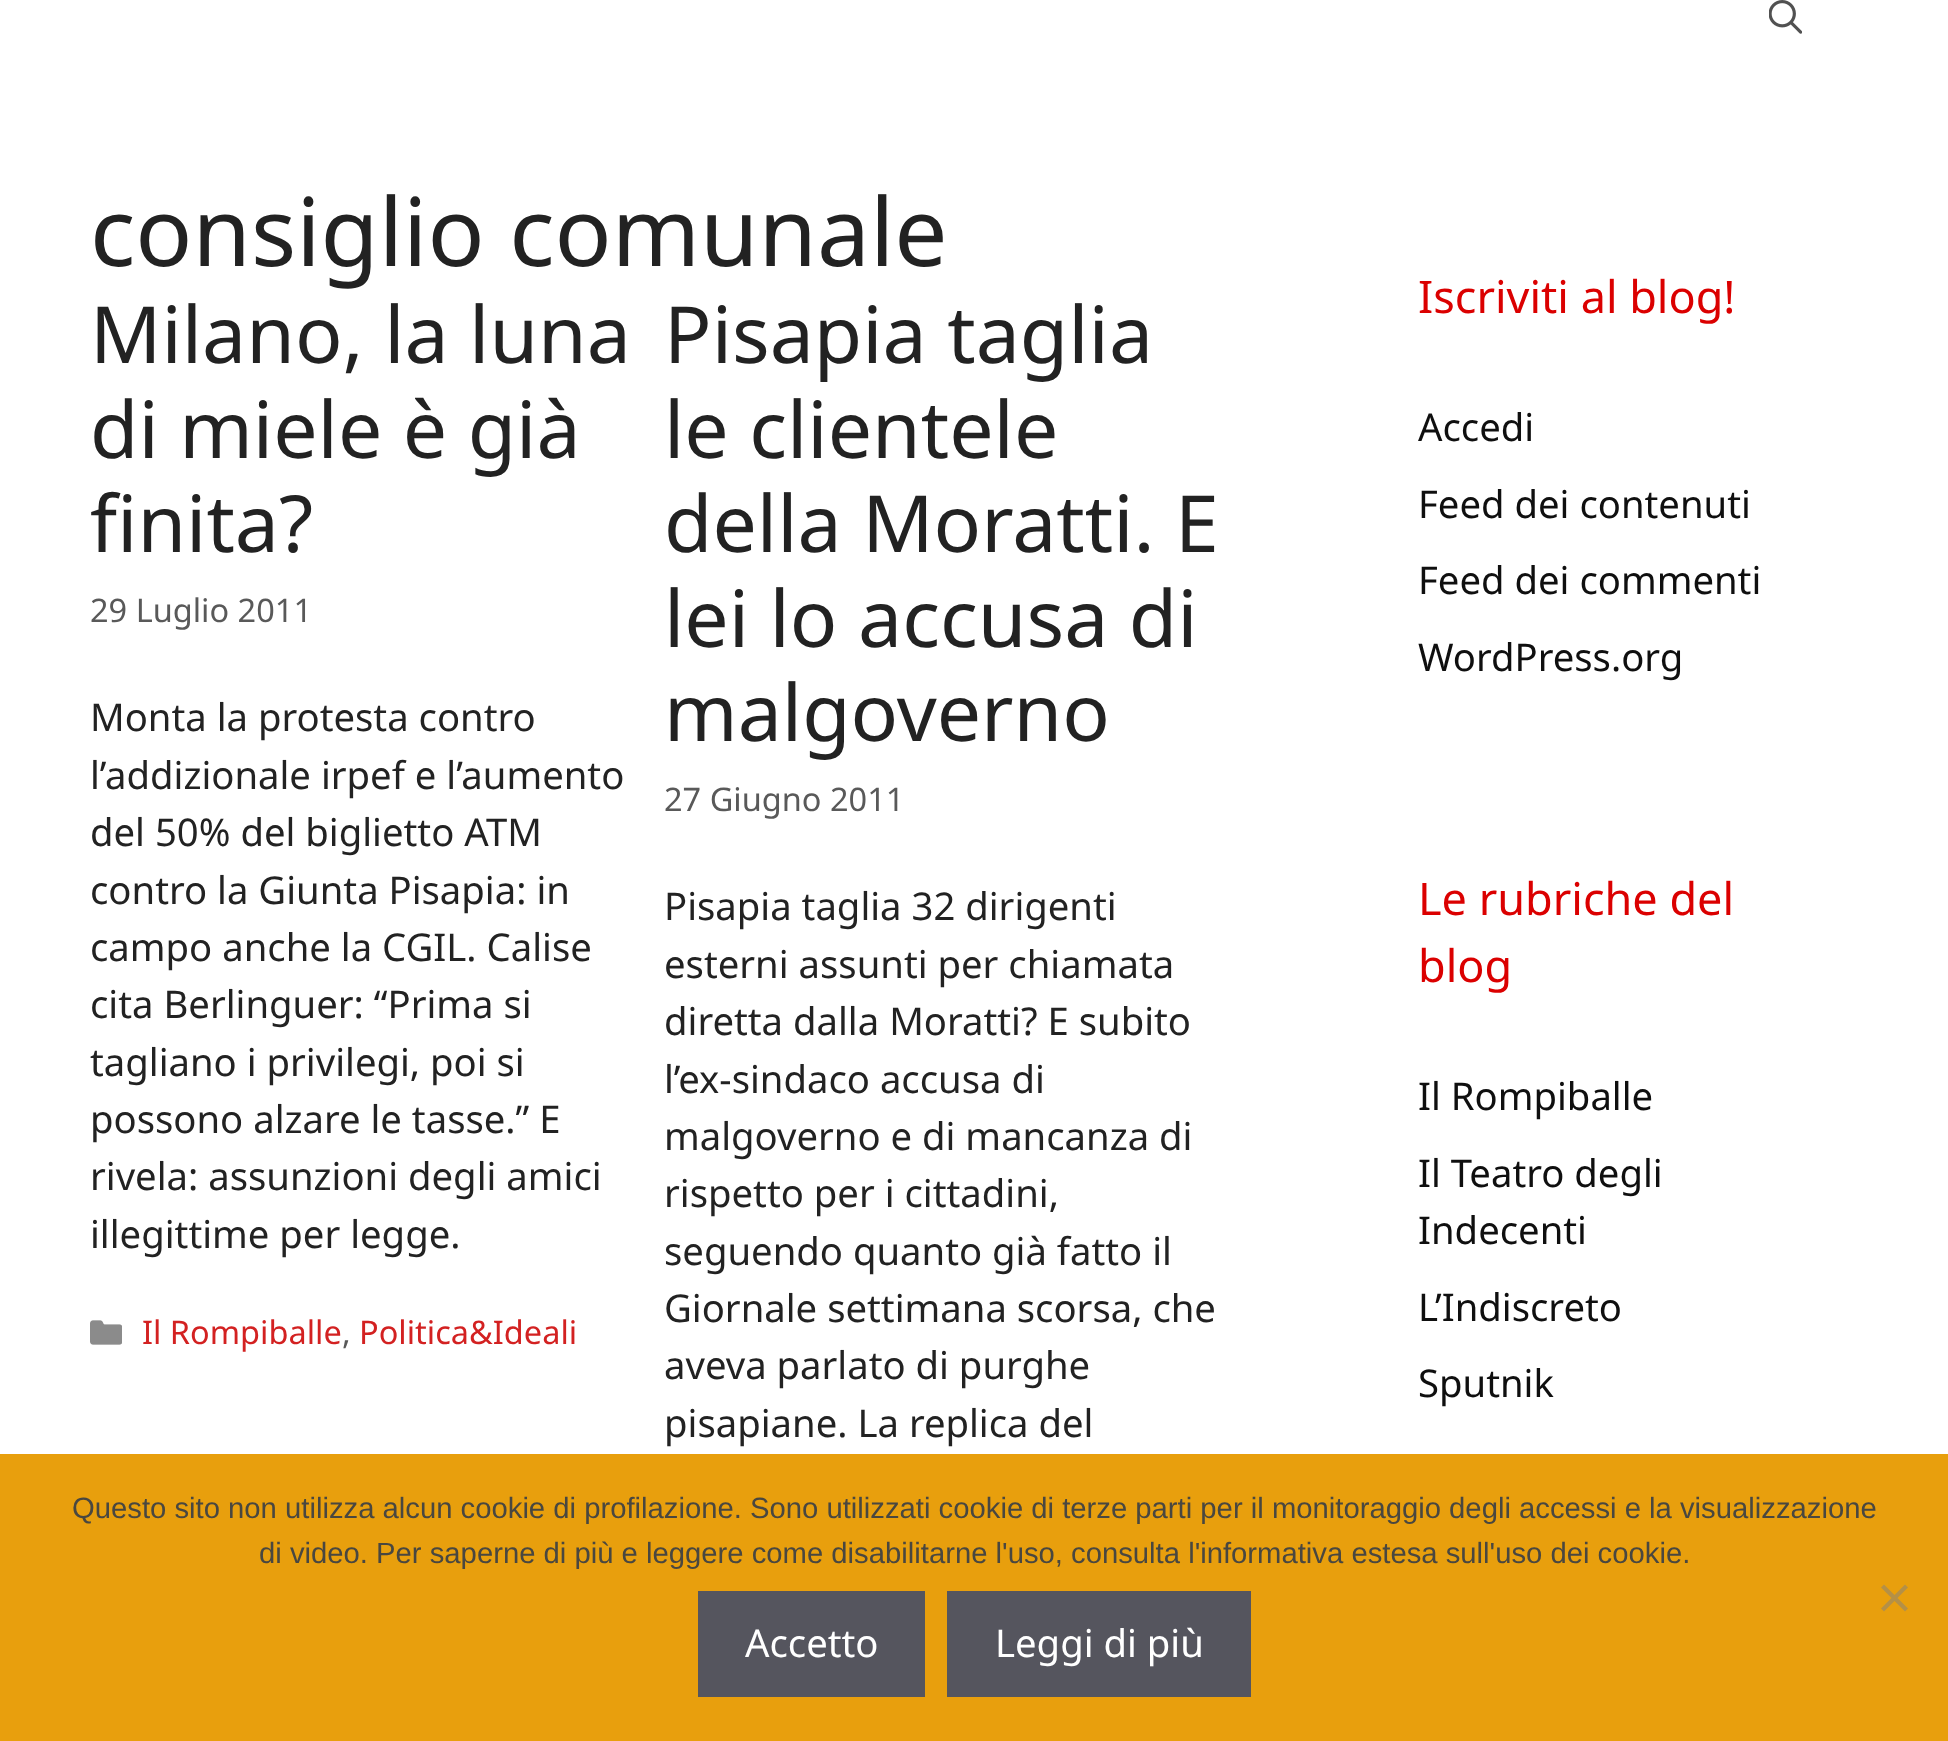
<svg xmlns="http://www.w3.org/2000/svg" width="1948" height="1741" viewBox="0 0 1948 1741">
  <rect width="100%" height="100%" fill="#ffffff"/>
  <image x="1769" y="0" width="33" height="34" href="img1.png"/>
  <text x="90" y="266" font-family="Noto Sans" font-size="94.5" fill="#222222">consiglio comunale</text>
  <text x="90" y="363" font-family="Noto Sans" font-size="78.75" fill="#222222">Milano, la luna</text>
  <text x="90" y="458" font-family="Noto Sans" font-size="78.75" fill="#222222">di miele è già</text>
  <text x="90" y="552" font-family="Noto Sans" font-size="78.75" fill="#222222">finita?</text>
  <text x="90" y="622" font-family="Noto Sans" font-size="32.5" fill="#595959">29 Luglio 2011</text>
  <text x="90" y="731" font-family="Noto Sans" font-size="38.25" fill="#222222">Monta la protesta contro</text>
  <text x="90" y="789" font-family="Noto Sans" font-size="38.25" fill="#222222">l’addizionale irpef e l’aumento</text>
  <text x="90" y="846" font-family="Noto Sans" font-size="38.25" fill="#222222">del 50% del biglietto ATM</text>
  <text x="90" y="904" font-family="Noto Sans" font-size="38.25" fill="#222222">contro la Giunta Pisapia: in</text>
  <text x="90" y="961" font-family="Noto Sans" font-size="38.25" fill="#222222">campo anche la CGIL. Calise</text>
  <text x="90" y="1018" font-family="Noto Sans" font-size="38.25" fill="#222222">cita Berlinguer: “Prima si</text>
  <text x="90" y="1076" font-family="Noto Sans" font-size="38.25" fill="#222222">tagliano i privilegi, poi si</text>
  <text x="90" y="1133" font-family="Noto Sans" font-size="38.25" fill="#222222">possono alzare le tasse.” E</text>
  <text x="90" y="1190" font-family="Noto Sans" font-size="38.25" fill="#222222">rivela: assunzioni degli amici</text>
  <text x="90" y="1248" font-family="Noto Sans" font-size="38.25" fill="#222222">illegittime per legge.</text>
  <image x="90" y="1320" width="32" height="25" href="img2.png"/>
  <text x="142" y="1344" font-family="Noto Sans" font-size="32.5" fill="#d32121">Il Rompiballe</text>
  <text x="342" y="1344" font-family="Noto Sans" font-size="32.5" fill="#595959">,</text>
  <text x="359" y="1344" font-family="Noto Sans" font-size="32.5" fill="#d32121">Politica&amp;Ideali</text>
  <text x="664" y="363" font-family="Noto Sans" font-size="78.75" fill="#222222">Pisapia taglia</text>
  <text x="664" y="458" font-family="Noto Sans" font-size="78.75" fill="#222222">le clientele</text>
  <text x="664" y="552" font-family="Noto Sans" font-size="78.75" fill="#222222">della Moratti. E</text>
  <text x="664" y="647" font-family="Noto Sans" font-size="78.75" fill="#222222">lei lo accusa di</text>
  <text x="664" y="741" font-family="Noto Sans" font-size="78.75" fill="#222222">malgoverno</text>
  <text x="664" y="811" font-family="Noto Sans" font-size="32.5" fill="#595959">27 Giugno 2011</text>
  <text x="664" y="920" font-family="Noto Sans" font-size="38.25" fill="#222222">Pisapia taglia 32 dirigenti</text>
  <text x="664" y="978" font-family="Noto Sans" font-size="38.25" fill="#222222">esterni assunti per chiamata</text>
  <text x="664" y="1035" font-family="Noto Sans" font-size="38.25" fill="#222222">diretta dalla Moratti? E subito</text>
  <text x="664" y="1093" font-family="Noto Sans" font-size="38.25" fill="#222222">l’ex-sindaco accusa di</text>
  <text x="664" y="1150" font-family="Noto Sans" font-size="38.25" fill="#222222">malgoverno e di mancanza di</text>
  <text x="664" y="1207" font-family="Noto Sans" font-size="38.25" fill="#222222">rispetto per i cittadini,</text>
  <text x="664" y="1265" font-family="Noto Sans" font-size="38.25" fill="#222222">seguendo quanto già fatto il</text>
  <text x="664" y="1322" font-family="Noto Sans" font-size="38.25" fill="#222222">Giornale settimana scorsa, che</text>
  <text x="664" y="1379" font-family="Noto Sans" font-size="38.25" fill="#222222">aveva parlato di purghe</text>
  <text x="664" y="1437" font-family="Noto Sans" font-size="38.25" fill="#222222">pisapiane. La replica del</text>
  <text x="1418" y="313" font-family="Noto Sans" font-size="45" fill="#db0000">Iscriviti al blog!</text>
  <text x="1418" y="441" font-family="Noto Sans" font-size="38.25" fill="#0f0f0f">Accedi</text>
  <text x="1418" y="518" font-family="Noto Sans" font-size="38.25" fill="#0f0f0f">Feed dei contenuti</text>
  <text x="1418" y="594" font-family="Noto Sans" font-size="38.25" fill="#0f0f0f">Feed dei commenti</text>
  <text x="1418" y="671" font-family="Noto Sans" font-size="38.25" fill="#0f0f0f">WordPress.org</text>
  <text x="1418" y="915" font-family="Noto Sans" font-size="45" fill="#db0000">Le rubriche del</text>
  <text x="1418" y="982" font-family="Noto Sans" font-size="45" fill="#db0000">blog</text>
  <text x="1418" y="1110" font-family="Noto Sans" font-size="38.25" fill="#0f0f0f">Il Rompiballe</text>
  <text x="1418" y="1187" font-family="Noto Sans" font-size="38.25" fill="#0f0f0f">Il Teatro degli</text>
  <text x="1418" y="1244" font-family="Noto Sans" font-size="38.25" fill="#0f0f0f">Indecenti</text>
  <text x="1418" y="1321" font-family="Noto Sans" font-size="38.25" fill="#0f0f0f">L’Indiscreto</text>
  <text x="1418" y="1397" font-family="Noto Sans" font-size="38.25" fill="#0f0f0f">Sputnik</text>
  <rect x="0" y="1454" width="1948" height="287" fill="#e89f0d"/>
  <text x="72" y="1518" font-family="Liberation Sans" font-size="29.25" fill="#494740">Questo sito non utilizza alcun cookie di profilazione. Sono utilizzati cookie di terze parti per il monitoraggio degli accessi e la visualizzazione</text>
  <text x="259" y="1563" font-family="Liberation Sans" font-size="29.25" fill="#494740">di video. Per saperne di più e leggere come disabilitarne l'uso, consulta l'informativa estesa sull'uso dei cookie.</text>
  <path d="M1905 1584.5L1908 1587.5L1884 1611.5L1881 1608.5Z" fill="#b49047"/>
  <path d="M1881 1587.5L1884 1584.5L1908 1608.5L1905 1611.5Z" fill="#b49047"/>
  <rect x="698" y="1591" width="227" height="106" fill="#55555e"/>
  <text x="745" y="1657" font-family="Noto Sans" font-size="38.25" fill="#ffffff">Accetto</text>
  <rect x="947" y="1591" width="304" height="106" fill="#55555e"/>
  <text x="995" y="1657" font-family="Noto Sans" font-size="38.25" fill="#ffffff">Leggi di più</text>
</svg>
